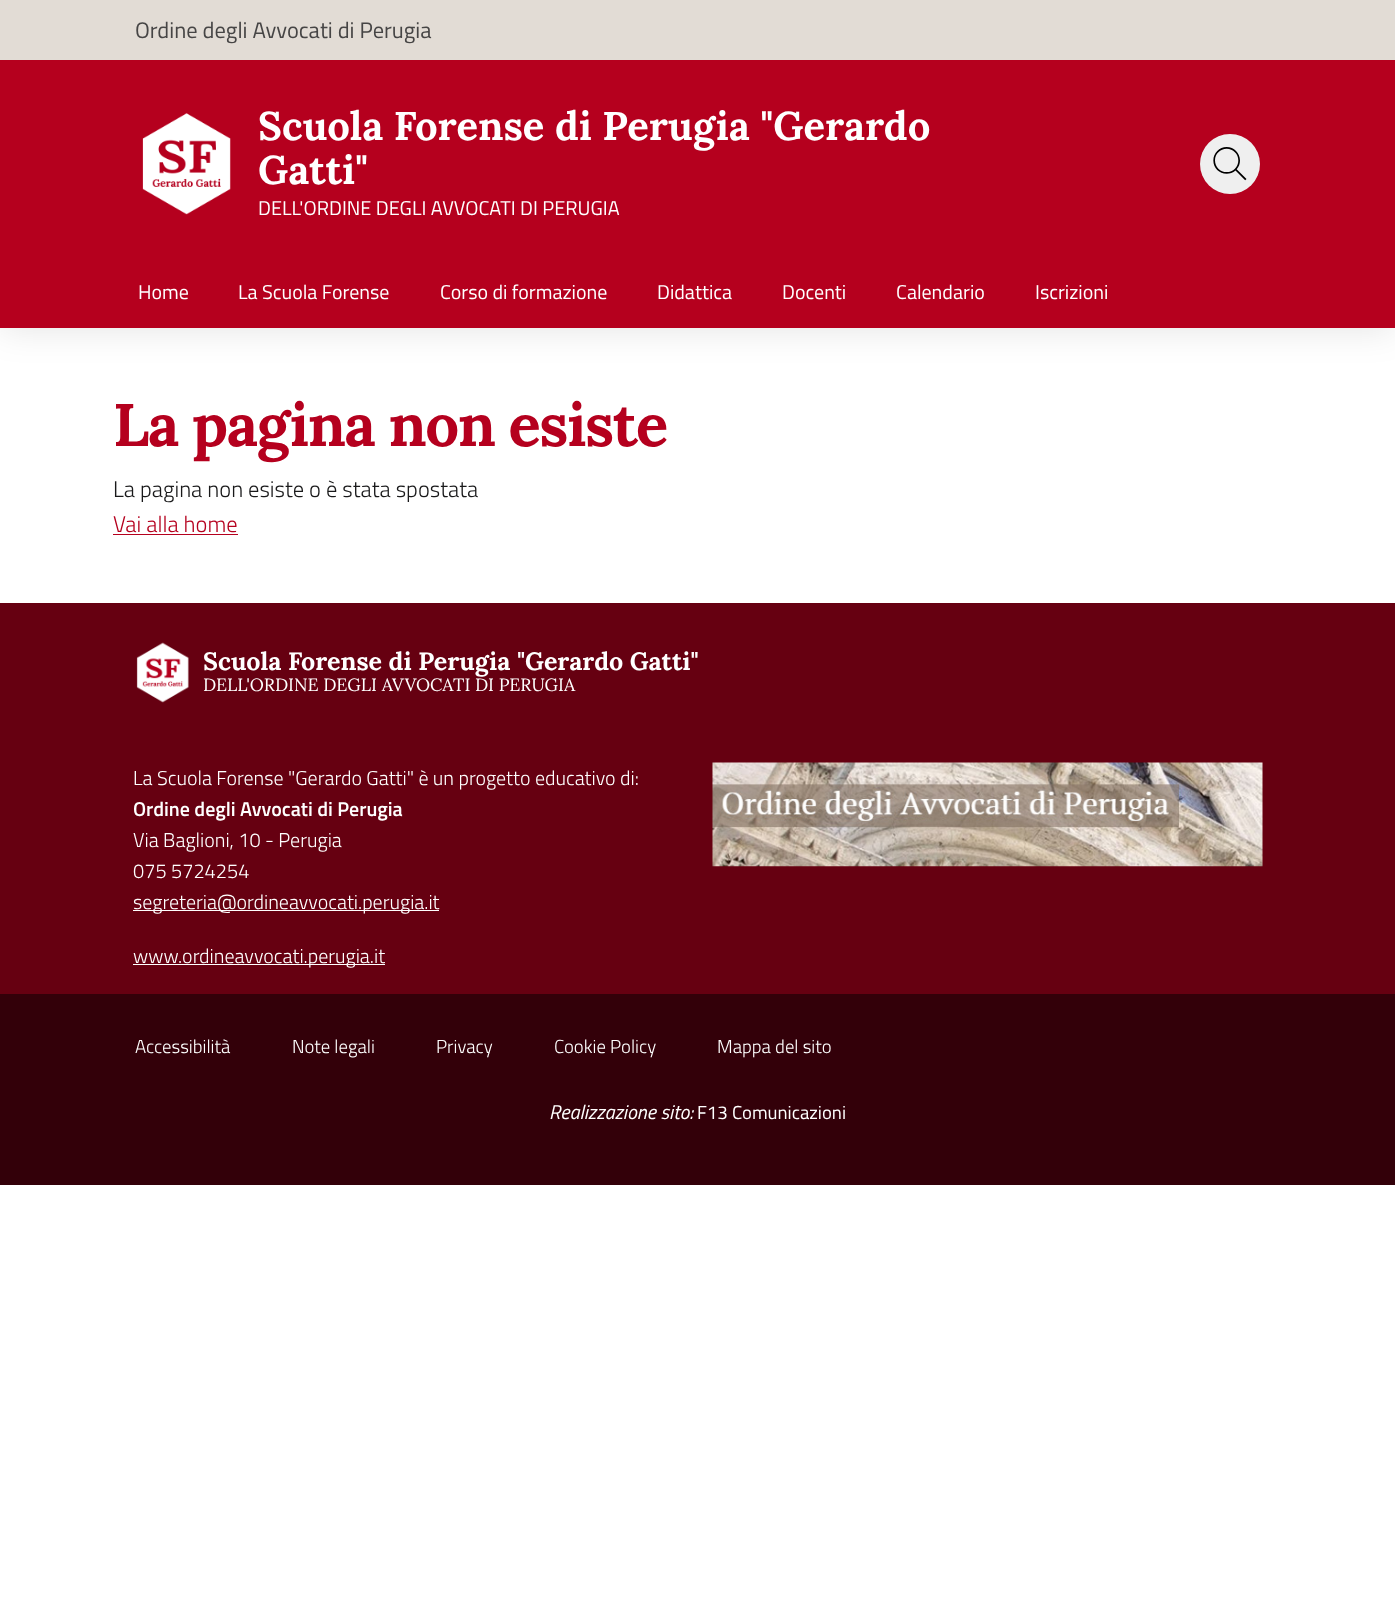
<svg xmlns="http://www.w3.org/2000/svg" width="1395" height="1615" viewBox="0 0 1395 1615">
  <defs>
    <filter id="blur1" x="-50%" y="-200%" width="200%" height="500%"><feGaussianBlur stdDeviation="17.5"/></filter>
  </defs>
  <rect width="100%" height="100%" fill="#ffffff"/>
  <rect x="0" y="3" width="1395" height="327" fill="#000000" fill-opacity="0.1" filter="url(#blur1)"/>
  <rect x="0" y="0" width="1395" height="60" fill="#e2dcd5"/>
  <text x="135" y="38" font-family="Titillium Web" font-size="22.5" fill="#464545">Ordine degli Avvocati di Perugia</text>
  <rect x="0" y="60" width="1395" height="268" fill="#b5001e"/>
  <image x="142" y="113" width="89" height="102" href="img1.png"/>
  <text x="258" y="140" font-family="Lora" font-size="40" font-weight="bold" fill="#ffffff">Scuola Forense di Perugia "Gerardo</text>
  <text x="258" y="184" font-family="Lora" font-size="40" font-weight="bold" fill="#ffffff">Gatti"</text>
  <text x="258" y="215" font-family="Titillium Web" font-size="20" fill="#ffffff">DELL'ORDINE DEGLI AVVOCATI DI PERUGIA</text>
  <circle cx="1230" cy="164" r="30" fill="#efefef"/>
  <image x="1213" y="147" width="34" height="34" href="img2.png"/>
  <text x="138" y="299" font-family="Titillium Web" font-size="20" fill="#ffffff">Home</text>
  <text x="238" y="299" font-family="Titillium Web" font-size="20" fill="#ffffff">La Scuola Forense</text>
  <text x="440" y="299" font-family="Titillium Web" font-size="20" fill="#ffffff">Corso di formazione</text>
  <text x="657" y="299" font-family="Titillium Web" font-size="20" fill="#ffffff">Didattica</text>
  <text x="782" y="299" font-family="Titillium Web" font-size="20" fill="#ffffff">Docenti</text>
  <text x="896" y="299" font-family="Titillium Web" font-size="20" fill="#ffffff">Calendario</text>
  <text x="1035" y="299" font-family="Titillium Web" font-size="20" fill="#ffffff">Iscrizioni</text>
  <text x="113" y="446" font-family="Lora" font-size="60" font-weight="bold" letter-spacing="-1.5" fill="#b5001e">La pagina non esiste</text>
  <text x="113" y="497" font-family="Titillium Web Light" font-size="22.5" font-weight="300" fill="#19191a">La pagina non esiste o è stata spostata</text>
  <text x="113" y="532" font-family="Titillium Web Light" font-size="22.5" font-weight="300" fill="#b5001e">Vai alla home</text>
  <rect x="113" y="534" width="125" height="1" fill="#b5001e"/>
  <rect x="0" y="603" width="1395" height="391" fill="#660011"/>
  <image x="136" y="642" width="53" height="61" href="img3.png"/>
  <text x="203" y="670" font-family="Lora" font-size="25" font-weight="bold" fill="#ffffff">Scuola Forense di Perugia "Gerardo Gatti"</text>
  <text x="203" y="691" font-family="Lora" font-size="17.75" fill="#ffffff">DELL'ORDINE DEGLI AVVOCATI DI PERUGIA</text>
  <text x="133" y="785" font-family="Titillium Web Light" font-size="20" font-weight="300" fill="#ffffff">La Scuola Forense "Gerardo Gatti" è un progetto educativo di:</text>
  <text x="133" y="816" font-family="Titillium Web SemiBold" font-size="20" font-weight="600" fill="#ffffff">Ordine degli Avvocati di Perugia</text>
  <text x="133" y="847" font-family="Titillium Web Light" font-size="20" font-weight="300" fill="#ffffff">Via Baglioni, 10 - Perugia</text>
  <text x="133" y="878" font-family="Titillium Web Light" font-size="20" font-weight="300" fill="#ffffff">075 5724254</text>
  <rect x="133" y="910" width="306" height="1" fill="#ffffff"/>
  <text x="133" y="909" font-family="Titillium Web Light" font-size="20" font-weight="300" fill="#ffffff">segreteria@ordineavvocati.perugia.it</text>
  <rect x="133" y="964" width="252" height="1" fill="#ffffff"/>
  <text x="133" y="963" font-family="Titillium Web Light" font-size="20" font-weight="300" fill="#ffffff">www.ordineavvocati.perugia.it</text>
  <image x="712" y="762" width="551" height="105" href="img4.png"/>
  <rect x="0" y="994" width="1395" height="191" fill="#330009"/>
  <text x="135" y="1053" font-family="Titillium Web Light" font-size="18.75" font-weight="300" fill="#ffffff">Accessibilità</text>
  <text x="292" y="1053" font-family="Titillium Web Light" font-size="18.75" font-weight="300" fill="#ffffff">Note legali</text>
  <text x="436" y="1053" font-family="Titillium Web Light" font-size="18.75" font-weight="300" fill="#ffffff">Privacy</text>
  <text x="554" y="1053" font-family="Titillium Web Light" font-size="18.75" font-weight="300" fill="#ffffff">Cookie Policy</text>
  <text x="717" y="1053" font-family="Titillium Web Light" font-size="18.75" font-weight="300" fill="#ffffff">Mappa del sito</text>
  <text x="549" y="1119" font-family="Titillium Web" font-size="20" font-style="italic" fill="#ffffff">Realizzazione sito:</text>
  <text x="697" y="1119" font-family="Titillium Web" font-size="18.75" fill="#ffffff">F13 Comunicazioni</text>
</svg>
